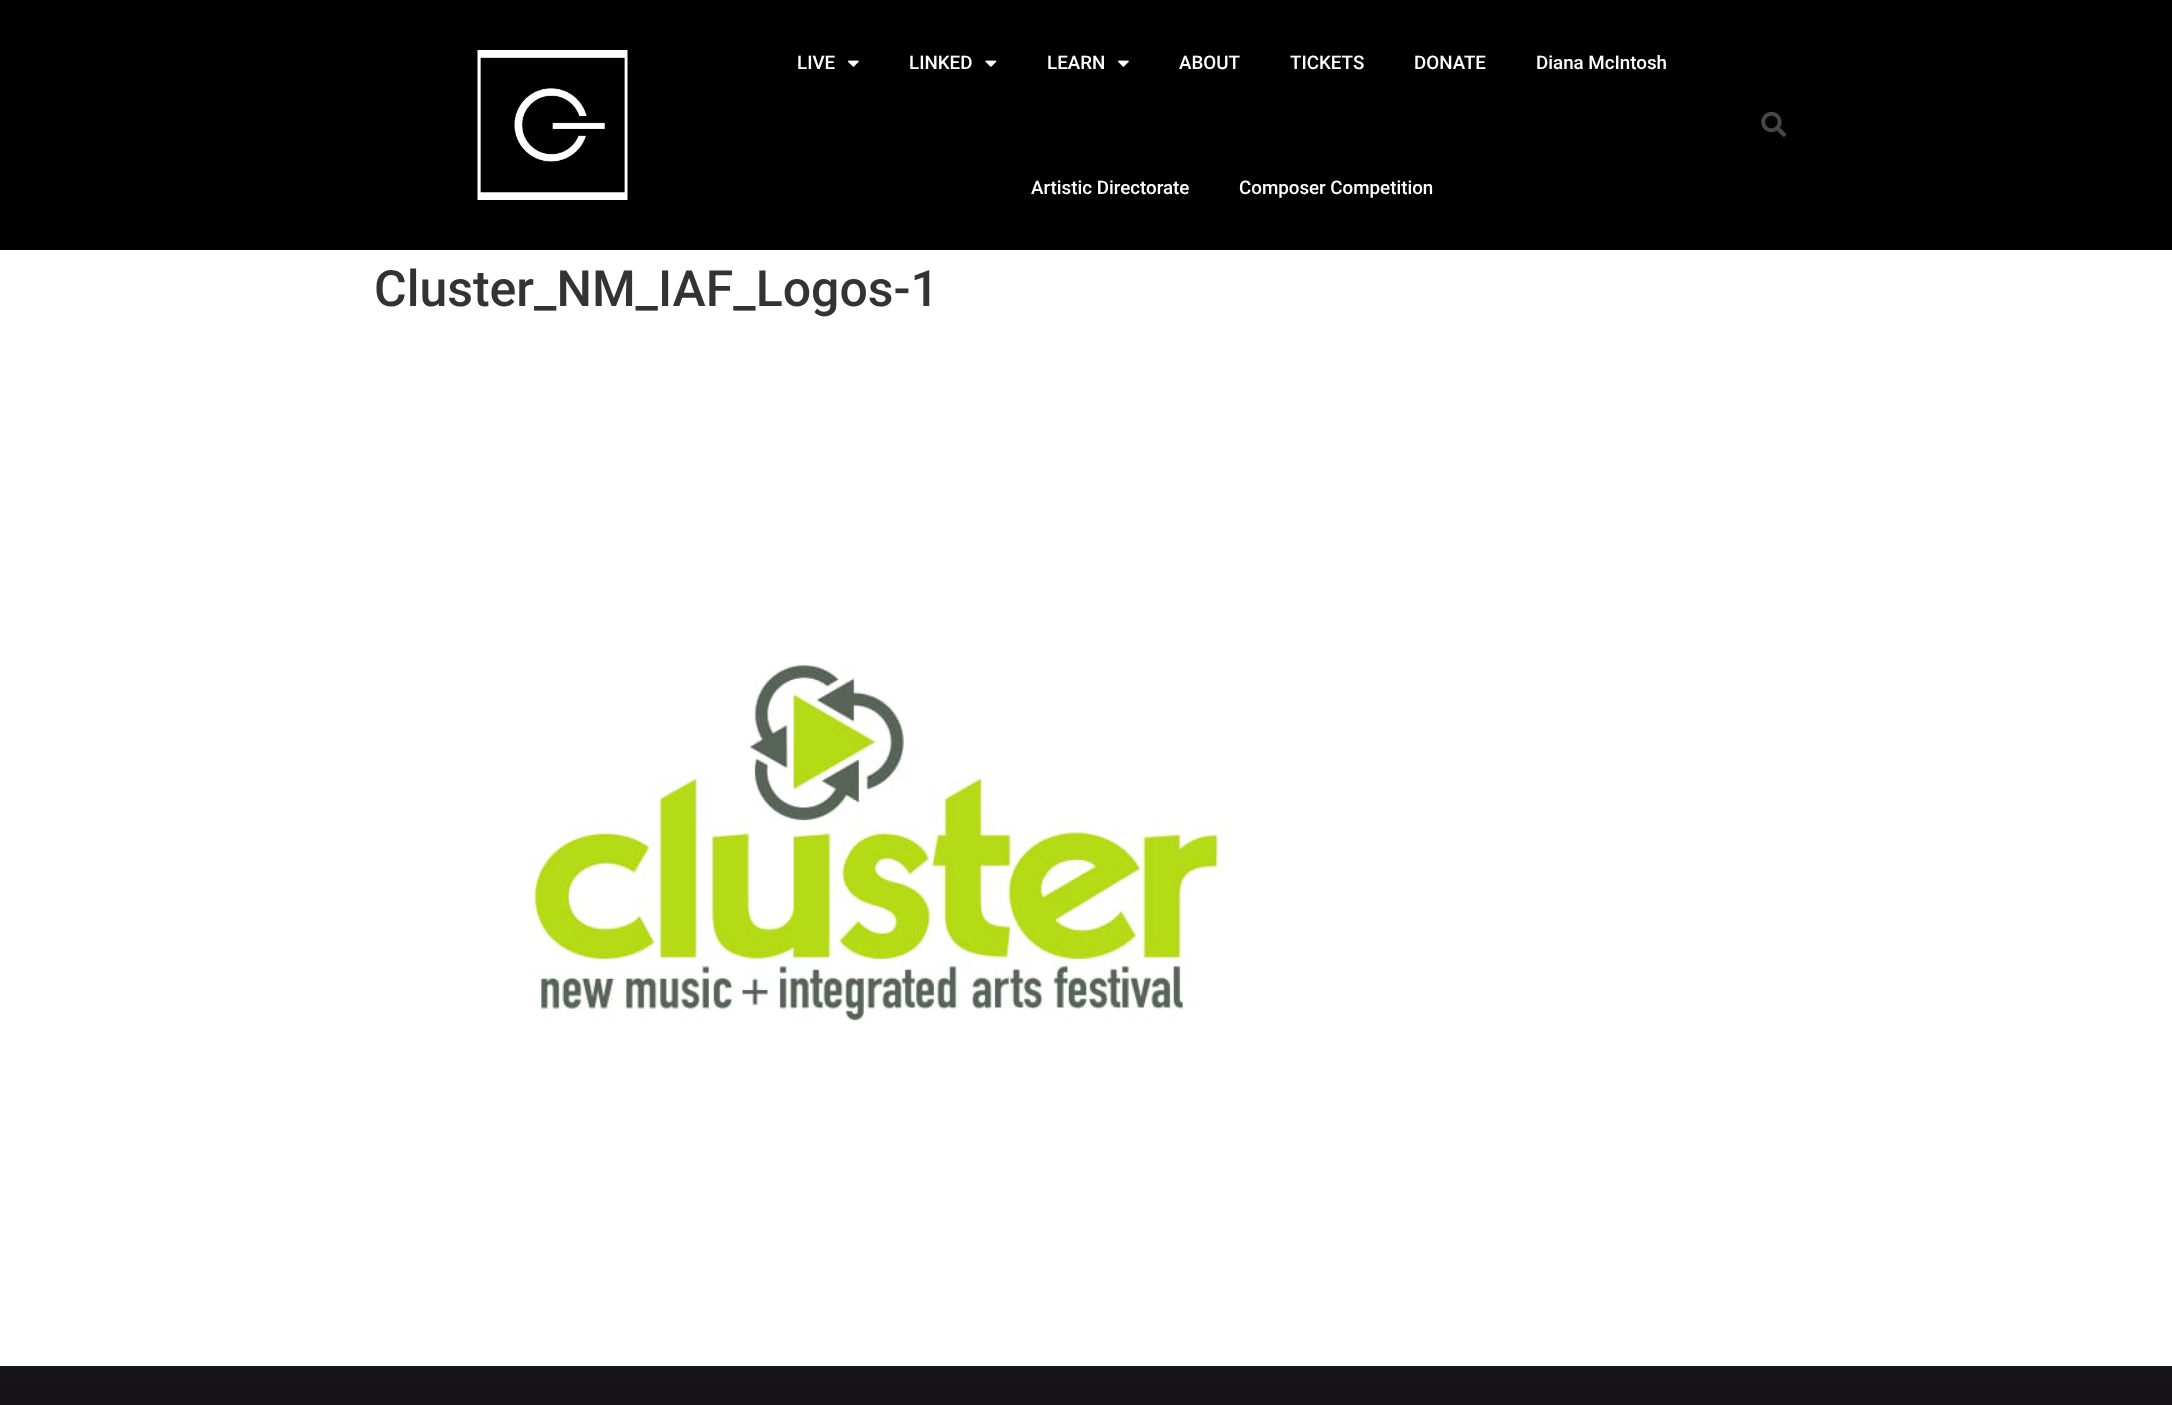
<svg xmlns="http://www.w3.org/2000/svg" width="2172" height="1405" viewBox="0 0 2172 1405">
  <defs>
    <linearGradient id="g1" gradientUnits="userSpaceOnUse" x1="1086" y1="1366" x2="1086" y2="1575"><stop offset="0" stop-color="#141519"/><stop offset="1" stop-color="#25020b"/></linearGradient>
  </defs>
  <rect width="100%" height="100%" fill="#ffffff"/>
  <rect x="0" y="0" width="2172" height="250" fill="#000000"/>
  <image x="477" y="50" width="151" height="150" href="img1.png"/>
  <text x="797" y="69" font-family="Roboto" font-size="18.75" font-weight="500" fill="#ffffff">LIVE</text>
  <image x="847" y="60" width="12" height="7" href="img2.png"/>
  <text x="909" y="69" font-family="Roboto" font-size="18.75" font-weight="500" fill="#ffffff">LINKED</text>
  <image x="985" y="60" width="12" height="7" href="img3.png"/>
  <text x="1047" y="69" font-family="Roboto" font-size="18.75" font-weight="500" fill="#ffffff">LEARN</text>
  <image x="1117" y="60" width="12" height="7" href="img2.png"/>
  <text x="1179" y="69" font-family="Roboto" font-size="18.75" font-weight="500" fill="#ffffff">ABOUT</text>
  <text x="1290" y="69" font-family="Roboto" font-size="18.75" font-weight="500" fill="#ffffff">TICKETS</text>
  <text x="1414" y="69" font-family="Roboto" font-size="18.75" font-weight="500" fill="#ffffff">DONATE</text>
  <text x="1536" y="69" font-family="Roboto" font-size="18.75" font-weight="500" fill="#ffffff">Diana McIntosh</text>
  <text x="1031" y="194" font-family="Roboto" font-size="18.75" font-weight="500" fill="#ffffff">Artistic Directorate</text>
  <text x="1239" y="194" font-family="Roboto" font-size="18.75" font-weight="500" fill="#ffffff">Composer Competition</text>
  <image x="1761" y="111" width="26" height="26" href="img4.png"/>
  <text x="374" y="306" font-family="Roboto" font-size="50" font-weight="500" fill="#333333">Cluster_NM_IAF_Logos-1</text>
  <image x="532" y="664" width="702" height="357" href="img5.png"/>
  <rect x="0" y="1366" width="2172" height="39" fill="url(#g1)"/>
</svg>
